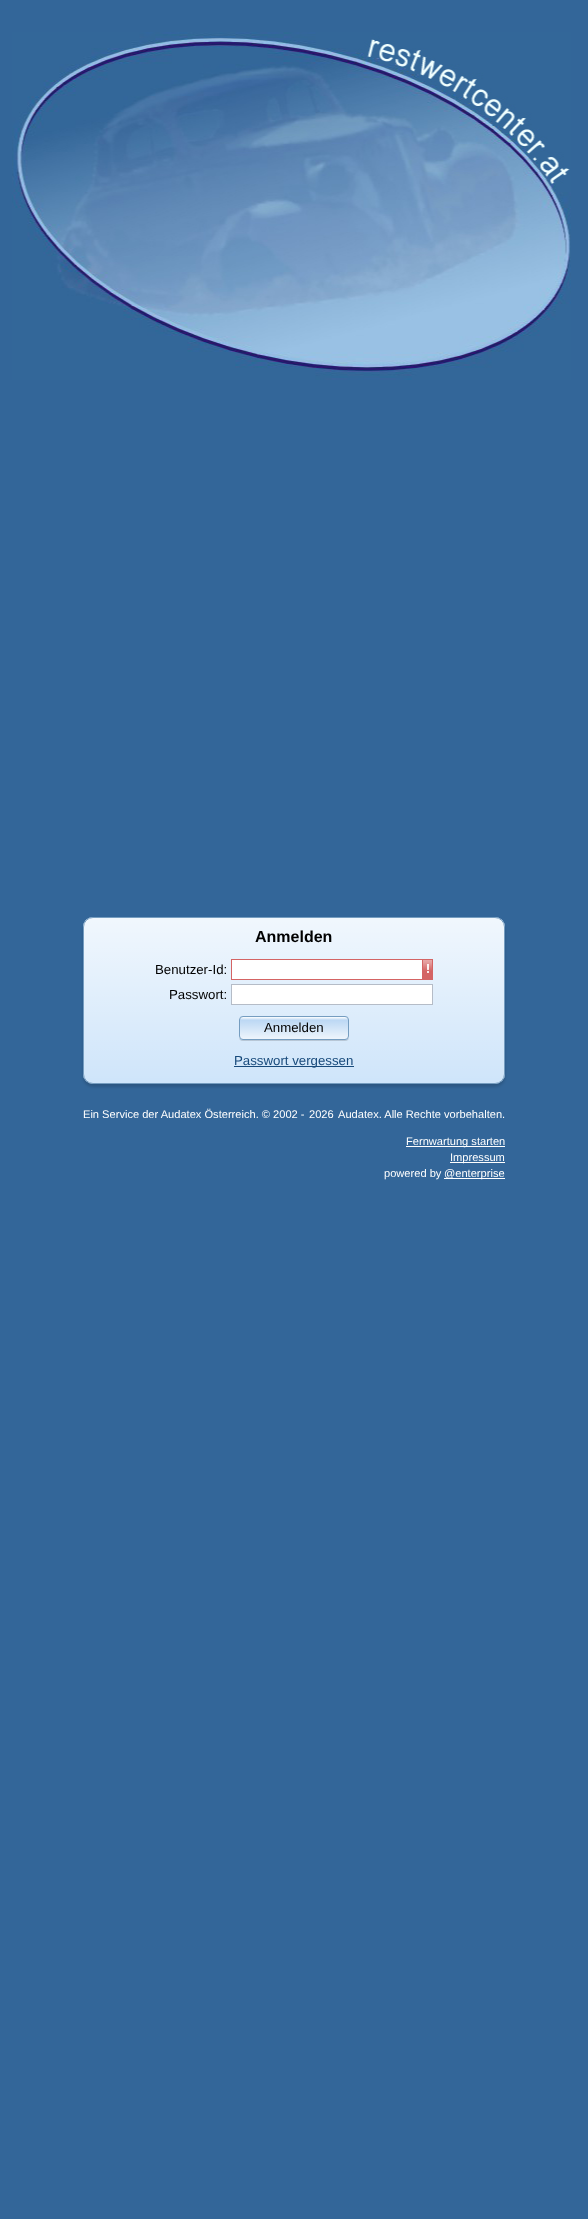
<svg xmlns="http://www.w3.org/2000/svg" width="588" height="2219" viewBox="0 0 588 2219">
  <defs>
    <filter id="blur1" x="-50%" y="-200%" width="200%" height="500%"><feGaussianBlur stdDeviation="1.5"/></filter>
    <clipPath id="clip1"><rect x="83" y="917" width="422" height="167" rx="10"/></clipPath>
    <linearGradient id="g1" gradientUnits="userSpaceOnUse" x1="294" y1="918" x2="294" y2="1083"><stop offset="0" stop-color="#ffffff" stop-opacity="0.7"/><stop offset="1" stop-color="#ffffff" stop-opacity="0"/></linearGradient>
    <filter id="blur2" x="-50%" y="-200%" width="200%" height="500%"><feGaussianBlur stdDeviation="0.5"/></filter>
    <clipPath id="clip2"><rect x="239" y="1016" width="110" height="24" rx="4"/></clipPath>
    <linearGradient id="g2" gradientUnits="userSpaceOnUse" x1="294" y1="1017" x2="294" y2="1039"><stop offset="0" stop-color="#ffffff"/><stop offset="0.14" stop-color="#ffffff" stop-opacity="0"/><stop offset="1" stop-color="#ffffff" stop-opacity="0.75"/></linearGradient>
  </defs>
  <rect width="100%" height="100%" fill="#336699"/>
  <image x="12" y="32" width="559" height="348" href="img1.png"/>
  <rect x="83" y="920" width="422" height="167" rx="10" fill="#000000" fill-opacity="0.15" filter="url(#blur1)"/>
  <rect x="83" y="917" width="422" height="167" rx="10" fill="#cfe5fa"/>
  <g clip-path="url(#clip1)">
    <rect x="83" y="918" width="422" height="160" fill="url(#g1)"/>
  </g>
  <rect x="83.5" y="917.5" width="421" height="166" rx="9.5" fill="none" stroke="#759dc0"/>
  <text x="255" y="942" font-family="Liberation Sans" font-size="16" font-weight="bold" fill="#000000">Anmelden</text>
  <text x="155" y="974" font-family="Liberation Sans" font-size="13.25" fill="#000000">Benutzer-Id:</text>
  <rect x="232" y="960" width="190" height="19" fill="#ffffff"/>
  <rect x="231.5" y="959.5" width="201" height="20" fill="none" stroke="#d46464"/>
  <image x="423" y="960" width="9" height="19" href="img2.png"/>
  <rect x="422" y="960" width="1" height="19" fill="#d46464"/>
  <text x="169" y="999" font-family="Liberation Sans" font-size="13.25" fill="#000000">Passwort:</text>
  <rect x="231.5" y="984.5" width="201" height="20" fill="#ffffff" stroke="#b5bcc7"/>
  <rect x="239" y="1017" width="110" height="24" rx="4" fill="#000000" fill-opacity="0.15" filter="url(#blur2)"/>
  <rect x="239" y="1016" width="110" height="24" rx="4" fill="#bcd8f4"/>
  <g clip-path="url(#clip2)">
    <rect x="239" y="1017" width="110" height="22" fill="url(#g2)"/>
  </g>
  <rect x="239.5" y="1016.5" width="109" height="23" rx="3.5" fill="none" stroke="#759dc0"/>
  <text x="264" y="1032" font-family="Liberation Sans" font-size="13.25" fill="#000000">Anmelden</text>
  <rect x="234" y="1066" width="120" height="1" fill="#184a7b"/>
  <text x="234" y="1065" font-family="Liberation Sans" font-size="13.25" fill="#184a7b">Passwort vergessen</text>
  <text x="83" y="1118" font-family="Liberation Sans" font-size="11.1" fill="#ffffff">Ein Service der Audatex Österreich. © 2002 -</text>
  <text x="309" y="1118" font-family="Liberation Sans" font-size="11.1" fill="#ffffff">2026</text>
  <text x="338" y="1118" font-family="Liberation Sans" font-size="11.1" fill="#ffffff">Audatex. Alle Rechte vorbehalten.</text>
  <rect x="406" y="1146" width="99" height="1" fill="#ffffff"/>
  <text x="406" y="1145" font-family="Liberation Sans" font-size="11.1" fill="#ffffff">Fernwartung starten</text>
  <rect x="450" y="1162" width="55" height="1" fill="#ffffff"/>
  <text x="450" y="1161" font-family="Liberation Sans" font-size="11.1" fill="#ffffff">Impressum</text>
  <text x="384" y="1177" font-family="Liberation Sans" font-size="11.1" fill="#ffffff">powered by</text>
  <rect x="444" y="1178" width="61" height="1" fill="#ffffff"/>
  <text x="444" y="1177" font-family="Liberation Sans" font-size="11.1" fill="#ffffff">@enterprise</text>
</svg>
